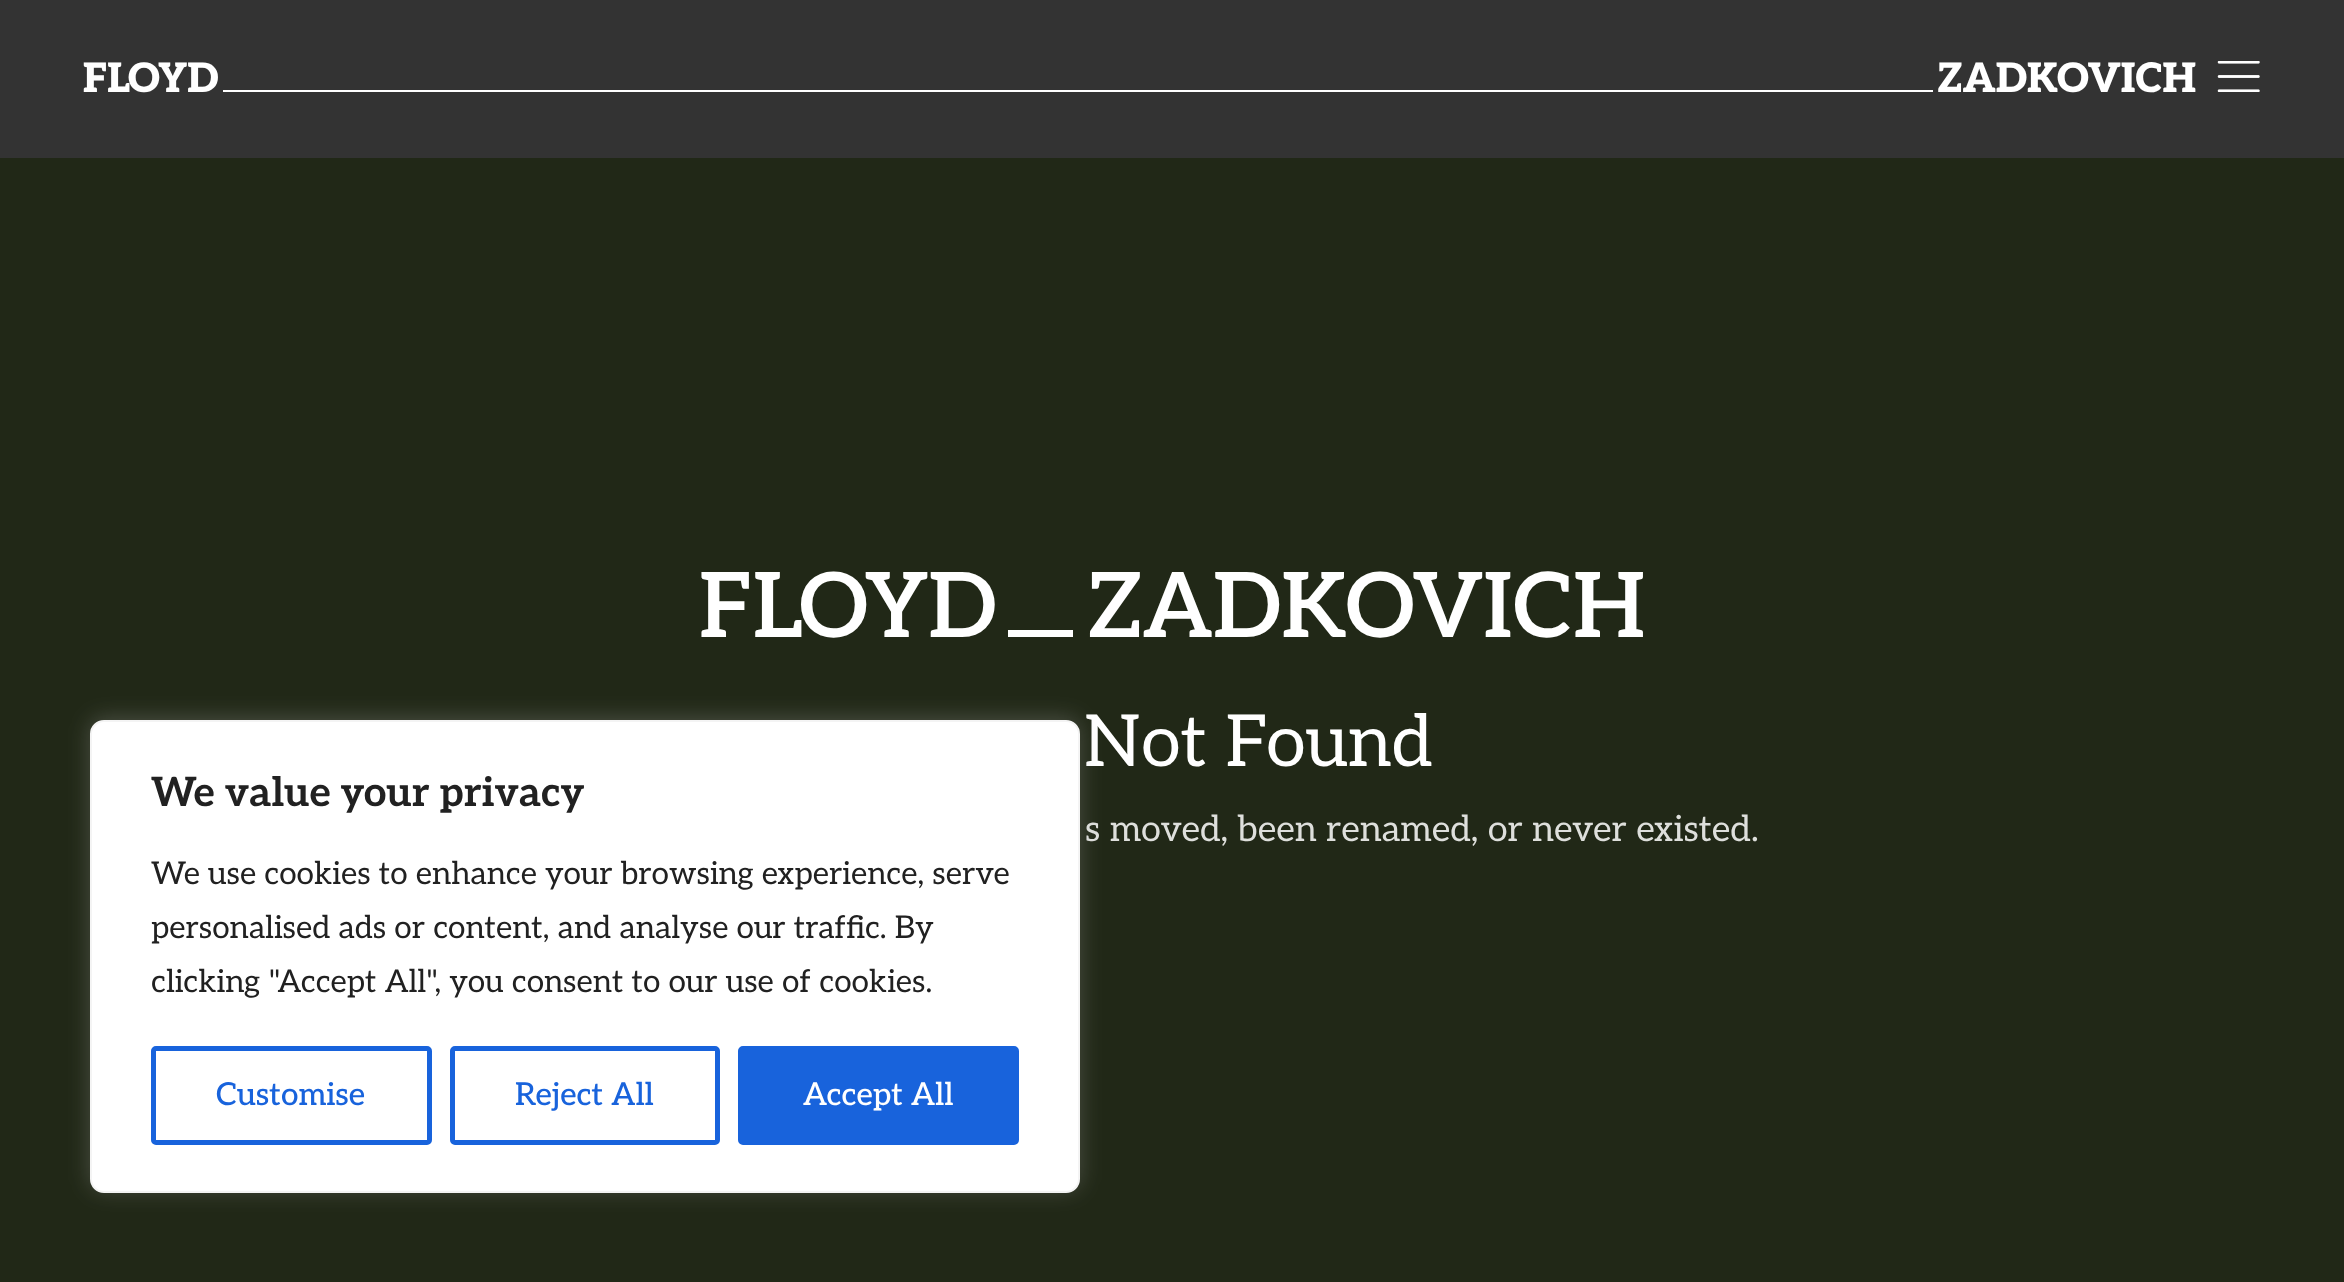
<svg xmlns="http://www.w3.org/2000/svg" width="2344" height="1282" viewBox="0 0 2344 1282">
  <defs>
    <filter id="blur1" x="-50%" y="-200%" width="200%" height="500%"><feGaussianBlur stdDeviation="11"/></filter>
  </defs>
  <rect width="100%" height="100%" fill="#212817"/>
  <rect x="0" y="0" width="2344" height="158" fill="#333333"/>
  <text x="83" y="92" font-family="Aleo" font-size="40.5" font-weight="900" fill="#ffffff">FLOYD</text>
  <rect x="223" y="90" width="1710" height="2" fill="#ffffff"/>
  <text x="1937" y="92" font-family="Aleo" font-size="40.5" font-weight="900" fill="#ffffff">ZADKOVICH</text>
  <image x="2217" y="61" width="43" height="31" href="img1.png"/>
  <text x="699" y="637" font-family="Aleo" font-size="90" font-weight="600" fill="#ffffff">FLOYD</text>
  <rect x="1008" y="630" width="65" height="7" fill="#ffffff"/>
  <text x="1087" y="637" font-family="Aleo" font-size="90" font-weight="600" fill="#ffffff">ZADKOVICH</text>
  <text x="1084" y="766" font-family="Aleo" font-size="72" fill="#ffffff">Not Found</text>
  <text x="1085" y="841" font-family="Aleo" font-size="36" fill="#dedfdc">s moved, been renamed, or never existed.</text>
  <rect x="90" y="718" width="990" height="472" rx="14" fill="#acabab" fill-opacity="0.3" filter="url(#blur1)"/>
  <rect x="91" y="721" width="988" height="471" rx="13" fill="#ffffff" stroke="#f4f4f4" stroke-width="2"/>
  <text x="151" y="806" font-family="Aleo" font-size="40.5" font-weight="bold" fill="#212121">We value your privacy</text>
  <text x="151" y="884" font-family="Aleo" font-size="31.5" fill="#212121">We use cookies to enhance your browsing experience, serve</text>
  <text x="151" y="938" font-family="Aleo" font-size="31.5" fill="#212121">personalised ads or content, and analyse our traffic. By</text>
  <text x="151" y="992" font-family="Aleo" font-size="31.5" fill="#212121">clicking "Accept All", you consent to our use of cookies.</text>
  <rect x="153.5" y="1048.5" width="276" height="94" rx="2.5" fill="none" stroke="#1863dc" stroke-width="5"/>
  <text x="216" y="1105" font-family="Aleo" font-size="31.5" font-weight="500" fill="#1863dc">Customise</text>
  <rect x="452.5" y="1048.5" width="265" height="94" rx="2.5" fill="none" stroke="#1863dc" stroke-width="5"/>
  <text x="515" y="1105" font-family="Aleo" font-size="31.5" font-weight="500" fill="#1863dc">Reject All</text>
  <rect x="740.5" y="1048.5" width="276" height="94" rx="2.5" fill="#1863dc" stroke="#1863dc" stroke-width="5"/>
  <text x="803" y="1105" font-family="Aleo" font-size="31.5" font-weight="500" fill="#ffffff">Accept All</text>
</svg>
